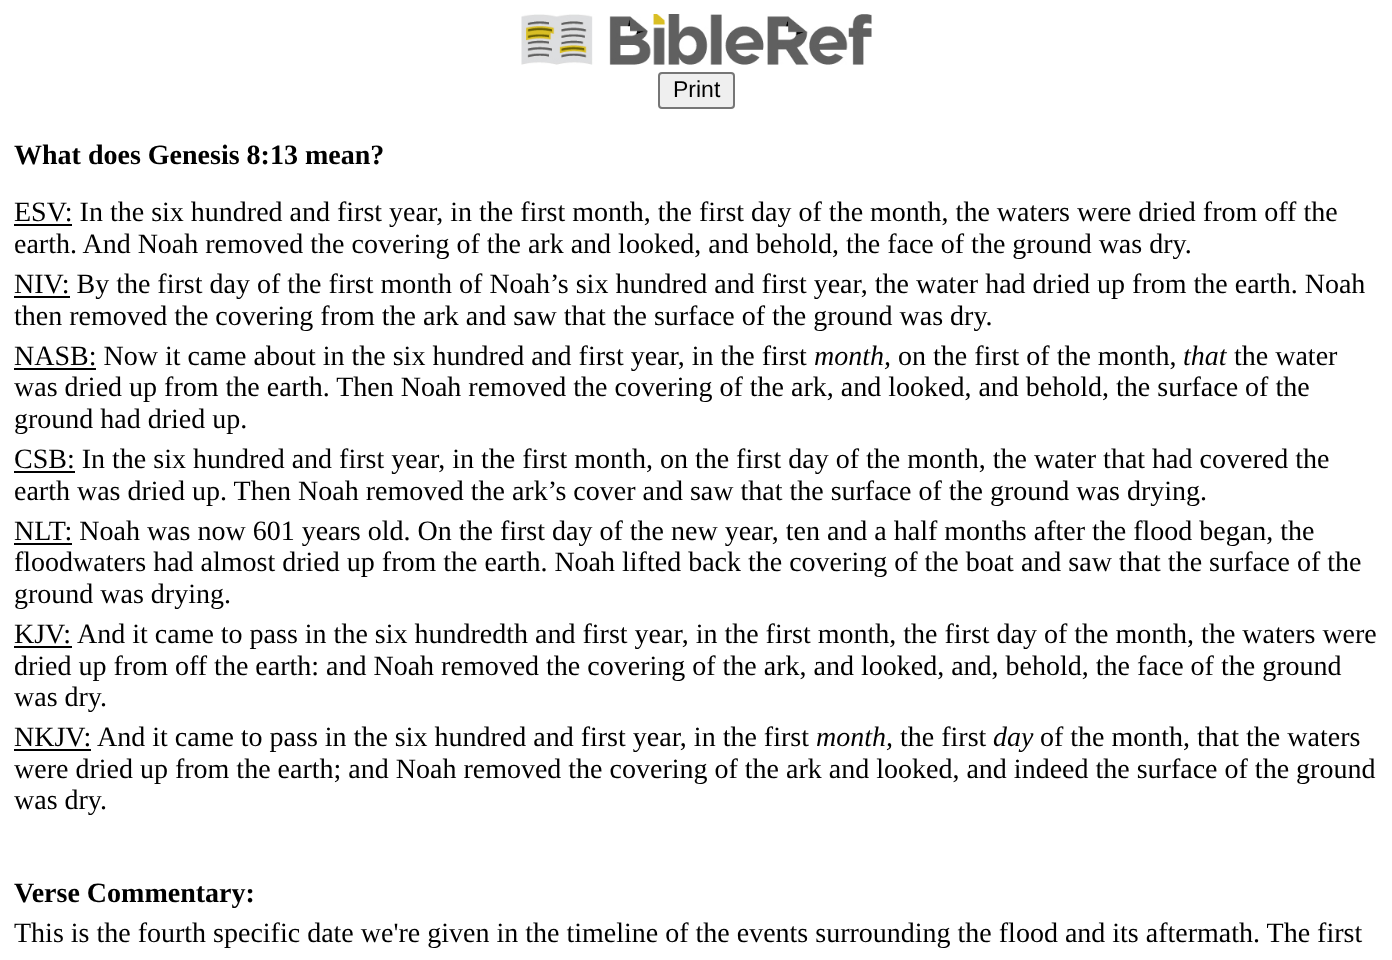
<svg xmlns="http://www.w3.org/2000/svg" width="1392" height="960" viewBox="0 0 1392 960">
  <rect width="100%" height="100%" fill="#ffffff"/>
  <image x="521" y="14" width="351" height="51" href="img1.png"/>
  <rect x="659" y="73" width="75" height="35" rx="3" fill="#efefef" stroke="#767676" stroke-width="2"/>
  <text x="673" y="97" font-family="Liberation Sans" font-size="23" fill="#000000">Print</text>
  <text x="14" y="164" font-family="Liberation Serif" font-size="28" font-weight="bold" fill="#000000">What does Genesis 8:13 mean?</text>
  <rect x="14" y="224" width="58" height="2" fill="#000000"/>
  <text x="14" y="221" font-family="Liberation Serif" font-size="28" fill="#000000">ESV: In the six hundred and first year, in the first month, the first day of the month, the waters were dried from off the</text>
  <text x="14" y="253" font-family="Liberation Serif" font-size="28" fill="#000000">earth. And Noah removed the covering of the ark and looked, and behold, the face of the ground was dry.</text>
  <rect x="14" y="296" width="56" height="2" fill="#000000"/>
  <text x="14" y="293" font-family="Liberation Serif" font-size="28" fill="#000000">NIV: By the first day of the first month of Noah’s six hundred and first year, the water had dried up from the earth. Noah</text>
  <text x="14" y="325" font-family="Liberation Serif" font-size="28" fill="#000000">then removed the covering from the ark and saw that the surface of the ground was dry.</text>
  <rect x="14" y="368" width="82" height="2" fill="#000000"/>
  <text x="14" y="365" font-family="Liberation Serif" font-size="28" fill="#000000">NASB: Now it came about in the six hundred and first year, in the first</text>
  <text x="814" y="365" font-family="Liberation Serif" font-size="28" font-style="italic" fill="#000000">month,</text>
  <text x="898" y="365" font-family="Liberation Serif" font-size="28" fill="#000000">on the first of the month,</text>
  <text x="1183" y="365" font-family="Liberation Serif" font-size="28" font-style="italic" fill="#000000">that</text>
  <text x="1234" y="365" font-family="Liberation Serif" font-size="28" fill="#000000">the water</text>
  <text x="14" y="396" font-family="Liberation Serif" font-size="28" fill="#000000">was dried up from the earth. Then Noah removed the covering of the ark, and looked, and behold, the surface of the</text>
  <text x="14" y="428" font-family="Liberation Serif" font-size="28" fill="#000000">ground had dried up.</text>
  <rect x="14" y="471" width="61" height="2" fill="#000000"/>
  <text x="14" y="468" font-family="Liberation Serif" font-size="28" fill="#000000">CSB: In the six hundred and first year, in the first month, on the first day of the month, the water that had covered the</text>
  <text x="14" y="500" font-family="Liberation Serif" font-size="28" fill="#000000">earth was dried up. Then Noah removed the ark’s cover and saw that the surface of the ground was drying.</text>
  <rect x="14" y="543" width="58" height="2" fill="#000000"/>
  <text x="14" y="540" font-family="Liberation Serif" font-size="28" fill="#000000">NLT: Noah was now 601 years old. On the first day of the new year, ten and a half months after the flood began, the</text>
  <text x="14" y="571" font-family="Liberation Serif" font-size="28" fill="#000000">floodwaters had almost dried up from the earth. Noah lifted back the covering of the boat and saw that the surface of the</text>
  <text x="14" y="603" font-family="Liberation Serif" font-size="28" fill="#000000">ground was drying.</text>
  <text x="14" y="643" font-family="Liberation Serif" font-size="28" fill="#000000">KJV:</text>
  <rect x="14" y="646" width="58" height="2" fill="#000000"/>
  <text x="77" y="643" font-family="Liberation Serif" font-size="28" fill="#000000">And it came to pass in the six hundredth and first year, in the first month, the first day of the month, the waters were</text>
  <text x="14" y="675" font-family="Liberation Serif" font-size="28" fill="#000000">dried up from off the earth: and Noah removed the covering of the ark, and looked, and, behold, the face of the ground</text>
  <text x="14" y="706" font-family="Liberation Serif" font-size="28" fill="#000000">was dry.</text>
  <text x="14" y="746" font-family="Liberation Serif" font-size="28" fill="#000000">NKJV:</text>
  <rect x="14" y="749" width="77" height="2" fill="#000000"/>
  <text x="97" y="746" font-family="Liberation Serif" font-size="28" fill="#000000">And it came to pass in the six hundred and first year, in the first</text>
  <text x="816" y="746" font-family="Liberation Serif" font-size="28" font-style="italic" fill="#000000">month,</text>
  <text x="900" y="746" font-family="Liberation Serif" font-size="28" fill="#000000">the first</text>
  <text x="993" y="746" font-family="Liberation Serif" font-size="28" font-style="italic" fill="#000000">day</text>
  <text x="1040" y="746" font-family="Liberation Serif" font-size="28" fill="#000000">of the month, that the waters</text>
  <text x="14" y="778" font-family="Liberation Serif" font-size="28" fill="#000000">were dried up from the earth; and Noah removed the covering of the ark and looked, and indeed the surface of the ground</text>
  <text x="14" y="809" font-family="Liberation Serif" font-size="28" fill="#000000">was dry.</text>
  <text x="14" y="902" font-family="Liberation Serif" font-size="28" font-weight="bold" fill="#000000">Verse Commentary:</text>
  <text x="14" y="942" font-family="Liberation Serif" font-size="28" fill="#000000">This is the fourth specific date we're given in the timeline of the events surrounding the flood and its aftermath. The first</text>
</svg>
